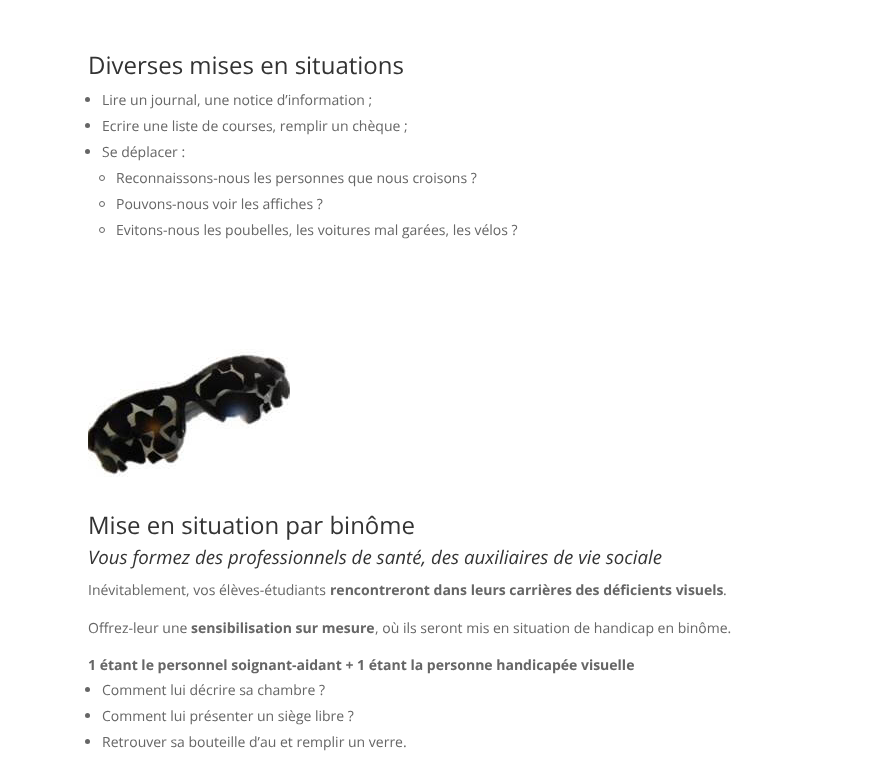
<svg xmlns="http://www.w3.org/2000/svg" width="884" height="781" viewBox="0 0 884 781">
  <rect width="100%" height="100%" fill="#ffffff"/>
  <text x="88" y="74" font-family="Open Sans" font-size="24" fill="#333333">Diverses mises en situations</text>
  <circle cx="87.5" cy="99.5" r="2.5" fill="#666666"/>
  <text x="102" y="105" font-family="Open Sans" font-size="14" fill="#666666">Lire un journal, une notice d’information ;</text>
  <circle cx="87.5" cy="125.5" r="2.5" fill="#666666"/>
  <text x="102" y="131" font-family="Open Sans" font-size="14" fill="#666666">Ecrire une liste de courses, remplir un chèque ;</text>
  <circle cx="87.5" cy="151.5" r="2.5" fill="#666666"/>
  <text x="102" y="157" font-family="Open Sans" font-size="14" fill="#666666">Se déplacer :</text>
  <circle cx="102" cy="178" r="2.5" fill="none" stroke="#666666"/>
  <text x="116" y="183" font-family="Open Sans" font-size="14" fill="#666666">Reconnaissons-nous les personnes que nous croisons ?</text>
  <circle cx="102" cy="204" r="2.5" fill="none" stroke="#666666"/>
  <text x="116" y="209" font-family="Open Sans" font-size="14" fill="#666666">Pouvons-nous voir les affiches ?</text>
  <circle cx="102" cy="230" r="2.5" fill="none" stroke="#666666"/>
  <text x="116" y="235" font-family="Open Sans" font-size="14" fill="#666666">Evitons-nous les poubelles, les voitures mal garées, les vélos ?</text>
  <image x="88" y="349" width="202" height="128" href="img1.png"/>
  <text x="88" y="534" font-family="Open Sans" font-size="24" fill="#333333">Mise en situation par binôme</text>
  <text x="88" y="564" font-family="Open Sans" font-size="18.7" font-style="italic" fill="#333333">Vous formez des professionnels de santé, des auxiliaires de vie sociale</text>
  <text x="88" y="595" font-family="Open Sans" font-size="14" fill="#666666">Inévitablement, vos élèves-étudiants</text>
  <text x="330" y="595" font-family="Open Sans" font-size="14" font-weight="bold" fill="#666666">rencontreront dans leurs carrières des déficients visuels</text>
  <text x="723" y="595" font-family="Open Sans" font-size="14" fill="#666666">.</text>
  <text x="88" y="633" font-family="Open Sans" font-size="14" fill="#666666">Offrez-leur une</text>
  <text x="191" y="633" font-family="Open Sans" font-size="14" font-weight="bold" fill="#666666">sensibilisation sur mesure</text>
  <text x="375" y="633" font-family="Open Sans" font-size="14" fill="#666666">, où ils seront mis en situation de handicap en binôme.</text>
  <text x="88" y="670" font-family="Open Sans" font-size="14" font-weight="bold" fill="#666666">1 étant le personnel soignant-aidant + 1 étant la personne handicapée visuelle</text>
  <circle cx="87.5" cy="689.5" r="2.5" fill="#666666"/>
  <text x="102" y="695" font-family="Open Sans" font-size="14" fill="#666666">Comment lui décrire sa chambre ?</text>
  <circle cx="87.5" cy="715.5" r="2.5" fill="#666666"/>
  <text x="102" y="721" font-family="Open Sans" font-size="14" fill="#666666">Comment lui présenter un siège libre ?</text>
  <circle cx="87.5" cy="741.5" r="2.5" fill="#666666"/>
  <text x="102" y="747" font-family="Open Sans" font-size="14" fill="#666666">Retrouver sa bouteille d’au et remplir un verre.</text>
</svg>
